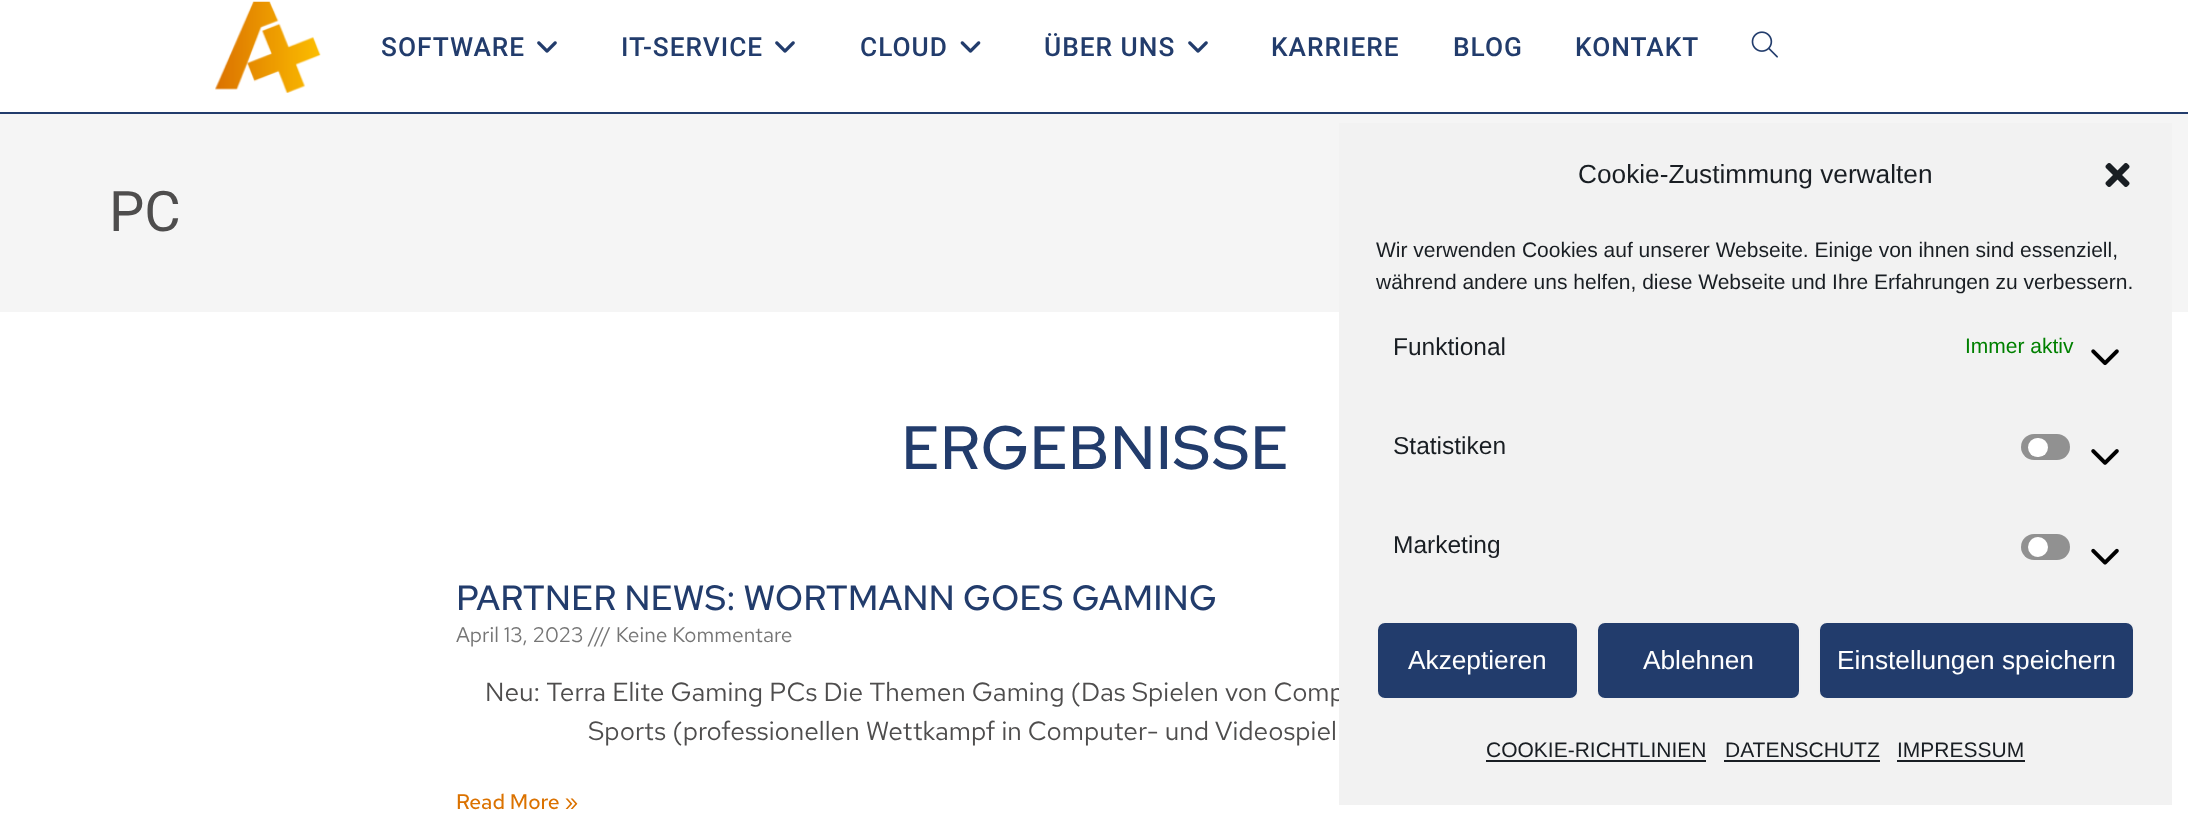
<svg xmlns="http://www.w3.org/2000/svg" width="2188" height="822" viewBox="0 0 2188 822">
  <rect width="100%" height="100%" fill="#ffffff"/>
  <rect x="0" y="112" width="2188" height="2" fill="#223c6c"/>
  <image x="215" y="1" width="106" height="92" href="img1.png"/>
  <text x="381" y="56" font-family="Roboto" font-size="26.25" font-weight="500" letter-spacing="1" fill="#223c6c">SOFTWARE</text>
  <image x="537" y="41" width="20" height="12" href="img2.png"/>
  <text x="621" y="56" font-family="Roboto" font-size="26.25" font-weight="500" letter-spacing="1" fill="#223c6c">IT-SERVICE</text>
  <image x="775" y="41" width="20" height="12" href="img2.png"/>
  <text x="860" y="56" font-family="Roboto" font-size="26.25" font-weight="500" letter-spacing="1" fill="#223c6c">CLOUD</text>
  <image x="960" y="41" width="21" height="12" href="img3.png"/>
  <text x="1044" y="56" font-family="Roboto" font-size="26.25" font-weight="500" letter-spacing="1" fill="#223c6c">ÜBER UNS</text>
  <image x="1188" y="41" width="20" height="12" href="img2.png"/>
  <text x="1271" y="56" font-family="Roboto" font-size="26.25" font-weight="500" letter-spacing="1" fill="#223c6c">KARRIERE</text>
  <text x="1453" y="56" font-family="Roboto" font-size="26.25" font-weight="500" letter-spacing="1" fill="#223c6c">BLOG</text>
  <text x="1575" y="56" font-family="Roboto" font-size="26.25" font-weight="500" letter-spacing="1" fill="#223c6c">KONTAKT</text>
  <image x="1751" y="31" width="27" height="27" href="img4.png"/>
  <rect x="0" y="114" width="2188" height="198" fill="#f5f5f5"/>
  <text x="109" y="231" font-family="Roboto" font-size="56" fill="#4e4d4d">PC</text>
  <text x="901" y="469" font-family="Red Hat Text" font-size="61.25" font-weight="500" fill="#223c6c">ERGEBNISSE</text>
  <text x="456" y="610" font-family="Red Hat Text" font-size="35" font-weight="500" fill="#223c6c">PARTNER NEWS: WORTMANN GOES GAMING</text>
  <text x="456" y="642" font-family="Red Hat Text" font-size="21" fill="#757575">April 13, 2023 /// Keine Kommentare</text>
  <text x="485" y="701" font-family="Red Hat Text" font-size="26.25" fill="#4e4d4d">Neu: Terra Elite Gaming PCs Die Themen Gaming (Das Spielen von Comp</text>
  <text x="588" y="740" font-family="Red Hat Text" font-size="26.25" fill="#4e4d4d">Sports (professionellen Wettkampf in Computer- und Videospiel</text>
  <text x="456" y="809" font-family="Red Hat Text" font-size="21" font-weight="500" fill="#db7200">Read More »</text>
  <rect x="1339" y="123" width="833" height="682" fill="#f2f2f2"/>
  <text x="1578" y="183" font-family="Liberation Sans" font-size="26.25" fill="#191e23">Cookie-Zustimmung verwalten</text>
  <image x="2105" y="163" width="25" height="24" href="img5.png"/>
  <text x="1376" y="257" font-family="Liberation Sans" font-size="21" fill="#191e23">Wir verwenden Cookies auf unserer Webseite. Einige von ihnen sind essenziell,</text>
  <text x="1376" y="289" font-family="Liberation Sans" font-size="21" fill="#191e23">während andere uns helfen, diese Webseite und Ihre Erfahrungen zu verbessern.</text>
  <text x="1393" y="355" font-family="Liberation Sans" font-size="24.5" fill="#191e23">Funktional</text>
  <text x="1965" y="353" font-family="Liberation Sans" font-size="21" fill="#008000">Immer aktiv</text>
  <image x="2091" y="349" width="28" height="17" href="img6.png"/>
  <text x="1393" y="454" font-family="Liberation Sans" font-size="24.5" fill="#191e23">Statistiken</text>
  <rect x="2021" y="434" width="49" height="26" rx="13" fill="#919191"/>
  <rect x="2028" y="438" width="20" height="19" rx="9.5" fill="#ffffff"/>
  <image x="2091" y="449" width="28" height="16" href="img7.png"/>
  <text x="1393" y="553" font-family="Liberation Sans" font-size="24.5" fill="#191e23">Marketing</text>
  <rect x="2021" y="534" width="49" height="26" rx="13" fill="#919191"/>
  <circle cx="2038" cy="547" r="10" fill="#ffffff"/>
  <image x="2091" y="548" width="28" height="17" href="img8.png"/>
  <rect x="1377" y="622" width="201" height="77" rx="8" fill="#223c6c" stroke="#f1f1f1" stroke-width="2"/>
  <text x="1408" y="669" font-family="Liberation Sans" font-size="26.25" fill="#ffffff">Akzeptieren</text>
  <rect x="1597" y="622" width="203" height="77" rx="8" fill="#223c6c" stroke="#f1f1f1" stroke-width="2"/>
  <text x="1643" y="669" font-family="Liberation Sans" font-size="26.25" fill="#ffffff">Ablehnen</text>
  <rect x="1819" y="622" width="315" height="77" rx="8" fill="#223c6c" stroke="#f1f1f1" stroke-width="2"/>
  <text x="1837" y="669" font-family="Liberation Sans" font-size="26.25" fill="#ffffff">Einstellungen speichern</text>
  <text x="1486" y="757" font-family="Liberation Sans" font-size="21" fill="#191e23">COOKIE-RICHTLINIEN</text>
  <rect x="1486" y="760" width="220" height="2" fill="#191e23"/>
  <text x="1725" y="757" font-family="Liberation Sans" font-size="21" fill="#191e23">DATENSCHUTZ</text>
  <rect x="1724" y="760" width="156" height="2" fill="#191e23"/>
  <text x="1897" y="757" font-family="Liberation Sans" font-size="21" fill="#191e23">IMPRESSUM</text>
  <rect x="1897" y="760" width="128" height="2" fill="#191e23"/>
</svg>
